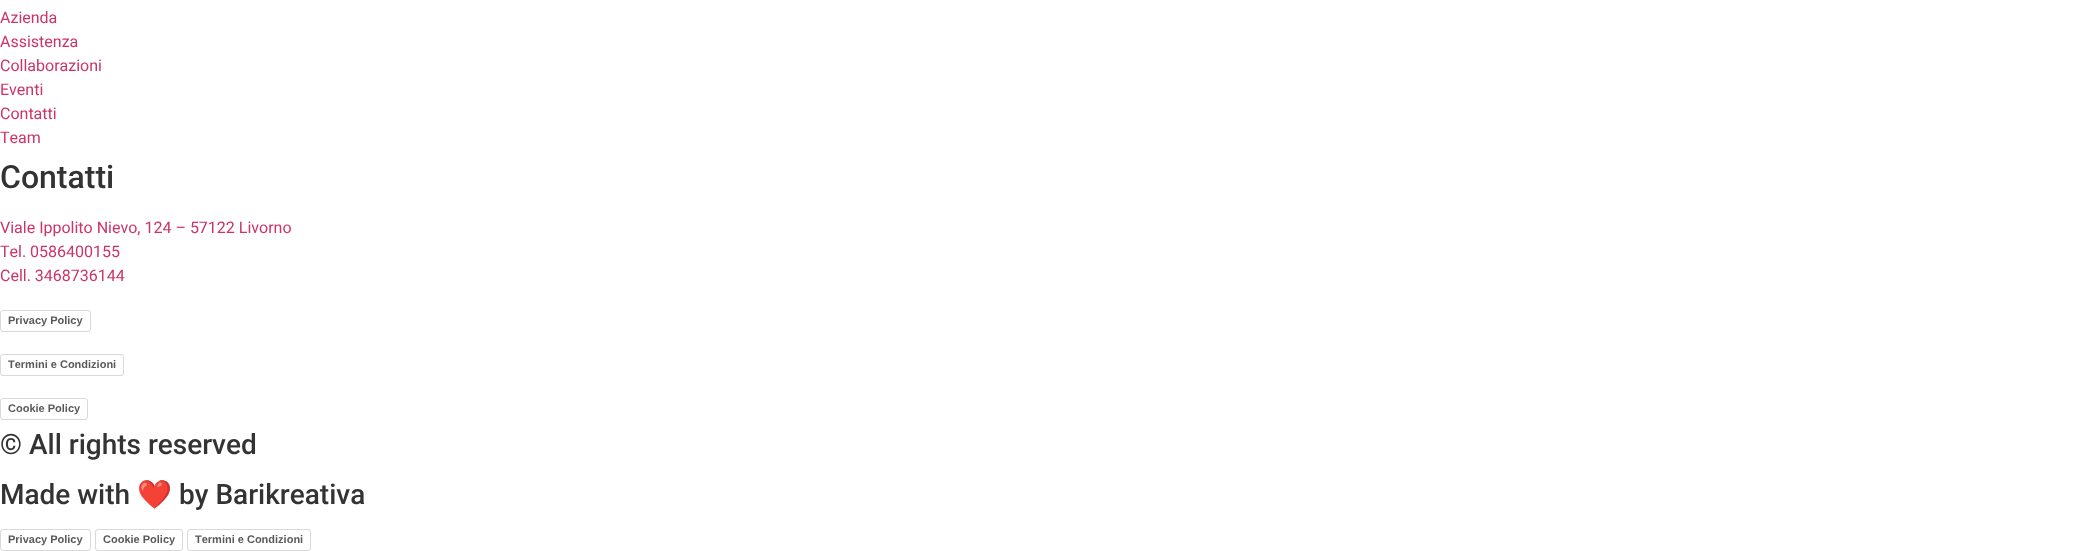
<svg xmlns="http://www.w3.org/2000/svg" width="2075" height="551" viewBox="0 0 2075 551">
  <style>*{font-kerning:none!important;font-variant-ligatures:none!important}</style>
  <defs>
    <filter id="blur1" x="-50%" y="-200%" width="200%" height="500%"><feGaussianBlur stdDeviation="0.5"/></filter>
  </defs>
  <rect width="100%" height="100%" fill="#ffffff"/>
  <text x="0" y="23" font-family="Roboto" font-size="16" fill="#cc3366">Azienda</text>
  <text x="0" y="47" font-family="Roboto" font-size="16" fill="#cc3366">Assistenza</text>
  <text x="0" y="71" font-family="Roboto" font-size="16" fill="#cc3366">Collaborazioni</text>
  <text x="0" y="95" font-family="Roboto" font-size="16" fill="#cc3366">Eventi</text>
  <text x="0" y="119" font-family="Roboto" font-size="16" fill="#cc3366">Contatti</text>
  <text x="0" y="143" font-family="Roboto" font-size="16" fill="#cc3366">Team</text>
  <text x="0" y="188" font-family="Roboto" font-size="32" font-weight="500" fill="#333333">Contatti</text>
  <text x="0" y="233" font-family="Roboto" font-size="16" fill="#cc3366">Viale Ippolito Nievo, 124 – 57122 Livorno</text>
  <text x="0" y="257" font-family="Roboto" font-size="16" fill="#cc3366">Tel. 0586400155</text>
  <text x="0" y="281" font-family="Roboto" font-size="16" fill="#cc3366">Cell. 3468736144</text>
  <rect x="1" y="312" width="89" height="20" rx="2" fill="#000000" fill-opacity="0.15" filter="url(#blur1)"/>
  <rect x="0" y="310" width="91" height="22" rx="3" fill="#ffffff"/>
  <rect x="0.5" y="310.5" width="90" height="21" rx="2.5" fill="none" stroke="#000000" stroke-opacity="0.15"/>
  <text x="8" y="324" font-family="Liberation Sans" font-size="11" font-weight="bold" fill="#595959">Privacy Policy</text>
  <rect x="1" y="356" width="122" height="20" rx="2" fill="#000000" fill-opacity="0.15" filter="url(#blur1)"/>
  <rect x="0" y="354" width="124" height="22" rx="3" fill="#ffffff"/>
  <rect x="0.5" y="354.5" width="123" height="21" rx="2.5" fill="none" stroke="#000000" stroke-opacity="0.15"/>
  <text x="8" y="368" font-family="Liberation Sans" font-size="11" font-weight="bold" fill="#595959">Termini e Condizioni</text>
  <rect x="1" y="400" width="86" height="20" rx="2" fill="#000000" fill-opacity="0.15" filter="url(#blur1)"/>
  <rect x="0" y="398" width="88" height="22" rx="3" fill="#ffffff"/>
  <rect x="0.5" y="398.5" width="87" height="21" rx="2.5" fill="none" stroke="#000000" stroke-opacity="0.15"/>
  <text x="8" y="412" font-family="Liberation Sans" font-size="11" font-weight="bold" fill="#595959">Cookie Policy</text>
  <text x="0" y="454" font-family="Roboto" font-size="28" font-weight="500" fill="#333333">© All rights reserved</text>
  <text x="0" y="504" font-family="Roboto" font-size="28" font-weight="500" fill="#333333">Made with</text>
  <text x="137" y="504" font-family="Noto Color Emoji" font-size="28" fill="#333333">❤</text>
  <text x="179" y="504" font-family="Roboto" font-size="28" font-weight="500" fill="#333333">by Barikreativa</text>
  <rect x="1" y="531" width="89" height="20" rx="2" fill="#000000" fill-opacity="0.15" filter="url(#blur1)"/>
  <rect x="0" y="529" width="91" height="22" rx="3" fill="#ffffff"/>
  <rect x="0.5" y="529.5" width="90" height="21" rx="2.5" fill="none" stroke="#000000" stroke-opacity="0.15"/>
  <text x="8" y="543" font-family="Liberation Sans" font-size="11" font-weight="bold" fill="#595959">Privacy Policy</text>
  <rect x="96" y="531" width="86" height="20" rx="2" fill="#000000" fill-opacity="0.15" filter="url(#blur1)"/>
  <rect x="95" y="529" width="88" height="22" rx="3" fill="#ffffff"/>
  <rect x="95.5" y="529.5" width="87" height="21" rx="2.5" fill="none" stroke="#000000" stroke-opacity="0.15"/>
  <text x="103" y="543" font-family="Liberation Sans" font-size="11" font-weight="bold" fill="#595959">Cookie Policy</text>
  <rect x="188" y="531" width="122" height="20" rx="2" fill="#000000" fill-opacity="0.15" filter="url(#blur1)"/>
  <rect x="187" y="529" width="124" height="22" rx="3" fill="#ffffff"/>
  <rect x="187.5" y="529.5" width="123" height="21" rx="2.5" fill="none" stroke="#000000" stroke-opacity="0.15"/>
  <text x="195" y="543" font-family="Liberation Sans" font-size="11" font-weight="bold" fill="#595959">Termini e Condizioni</text>
</svg>
